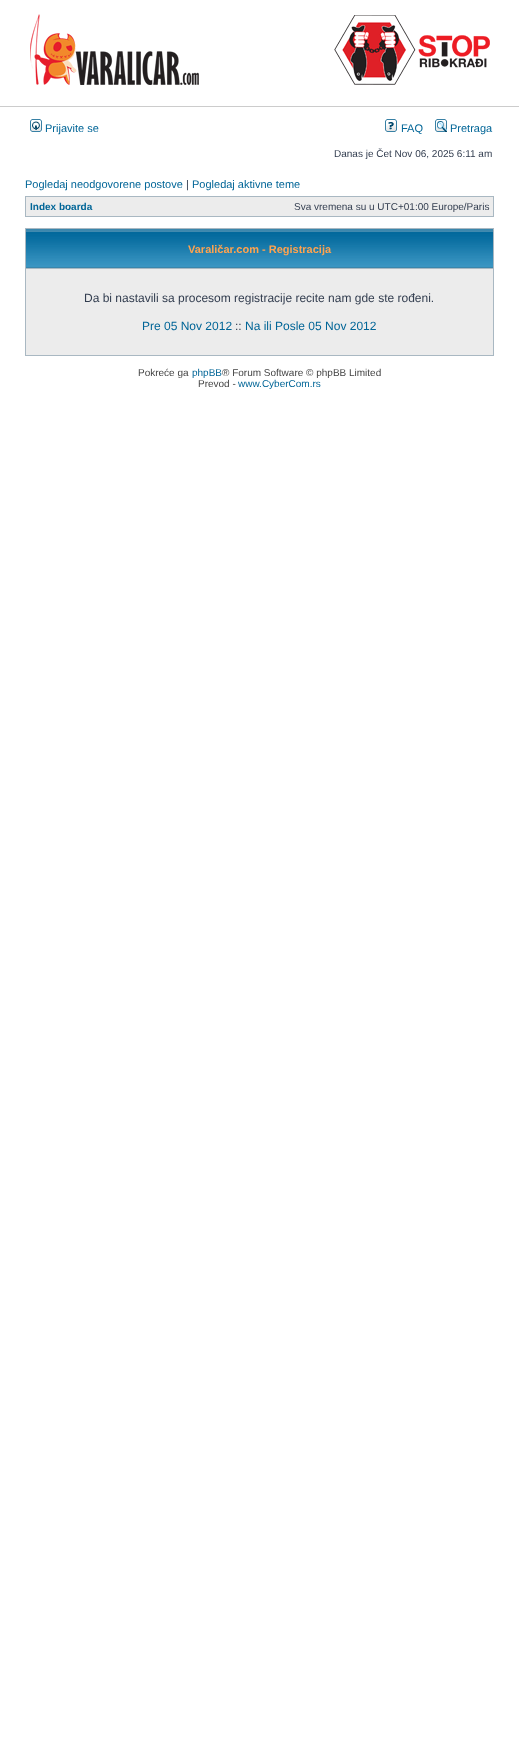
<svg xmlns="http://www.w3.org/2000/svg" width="519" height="1744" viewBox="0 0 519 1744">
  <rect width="100%" height="100%" fill="#ffffff"/>
  <rect x="0" y="106" width="519" height="1" fill="#cccccc"/>
  <image x="30" y="14" width="169" height="71" href="img1.png"/>
  <image x="334" y="15" width="156" height="70" href="img2.png"/>
  <image x="30" y="119" width="12" height="13" href="img3.png"/>
  <text x="45" y="132" font-family="Liberation Sans" font-size="11" fill="#006597">Prijavite se</text>
  <image x="385" y="119" width="12" height="13" href="img4.png"/>
  <text x="401" y="132" font-family="Liberation Sans" font-size="11" fill="#006597">FAQ</text>
  <image x="435" y="119" width="12" height="13" href="img5.png"/>
  <text x="450" y="132" font-family="Liberation Sans" font-size="11" fill="#006597">Pretraga</text>
  <text x="334" y="157" font-family="Liberation Sans" font-size="10" fill="#323d4f">Danas je Čet Nov 06, 2025 6:11 am</text>
  <text x="25" y="188" font-family="Liberation Sans" font-size="11" fill="#006597">Pogledaj neodgovorene postove</text>
  <text x="186" y="188" font-family="Liberation Sans" font-size="11" fill="#323d4f">|</text>
  <text x="192" y="188" font-family="Liberation Sans" font-size="11" fill="#006597">Pogledaj aktivne teme</text>
  <rect x="25" y="196" width="469" height="21" fill="#a9b8c2"/>
  <rect x="26" y="197" width="467" height="19" fill="#ececec"/>
  <text x="30" y="210" font-family="Liberation Sans" font-size="10" font-weight="bold" fill="#006597">Index boarda</text>
  <text x="294" y="210" font-family="Liberation Sans" font-size="10" fill="#323d4f">Sva vremena su u UTC+01:00 Europe/Paris</text>
  <rect x="25" y="228" width="469" height="128" fill="#a9b8c2"/>
  <image x="26" y="229" width="467" height="39" href="img6.png"/>
  <text x="188" y="253" font-family="Liberation Sans" font-size="11" font-weight="bold" fill="#ffa34f">Varaličar.com - Registracija</text>
  <rect x="26" y="269" width="467" height="86" fill="#ececec"/>
  <text x="84" y="302" font-family="Liberation Sans" font-size="12" fill="#323d4f">Da bi nastavili sa procesom registracije recite nam gde ste rođeni.</text>
  <text x="142" y="330" font-family="Liberation Sans" font-size="12" fill="#006597">Pre 05 Nov 2012</text>
  <text x="235" y="330" font-family="Liberation Sans" font-size="12" fill="#323d4f">::</text>
  <text x="245" y="330" font-family="Liberation Sans" font-size="12" fill="#006597">Na ili Posle 05 Nov 2012</text>
  <text x="138" y="376" font-family="Liberation Sans" font-size="10" fill="#444444">Pokreće ga</text>
  <text x="192" y="376" font-family="Liberation Sans" font-size="10" fill="#006597">phpBB</text>
  <text x="222" y="376" font-family="Liberation Sans" font-size="10" fill="#444444">® Forum Software © phpBB Limited</text>
  <text x="198" y="387" font-family="Liberation Sans" font-size="10" fill="#444444">Prevod -</text>
  <text x="238" y="387" font-family="Liberation Sans" font-size="10" fill="#006597">www.CyberCom.rs</text>
</svg>
